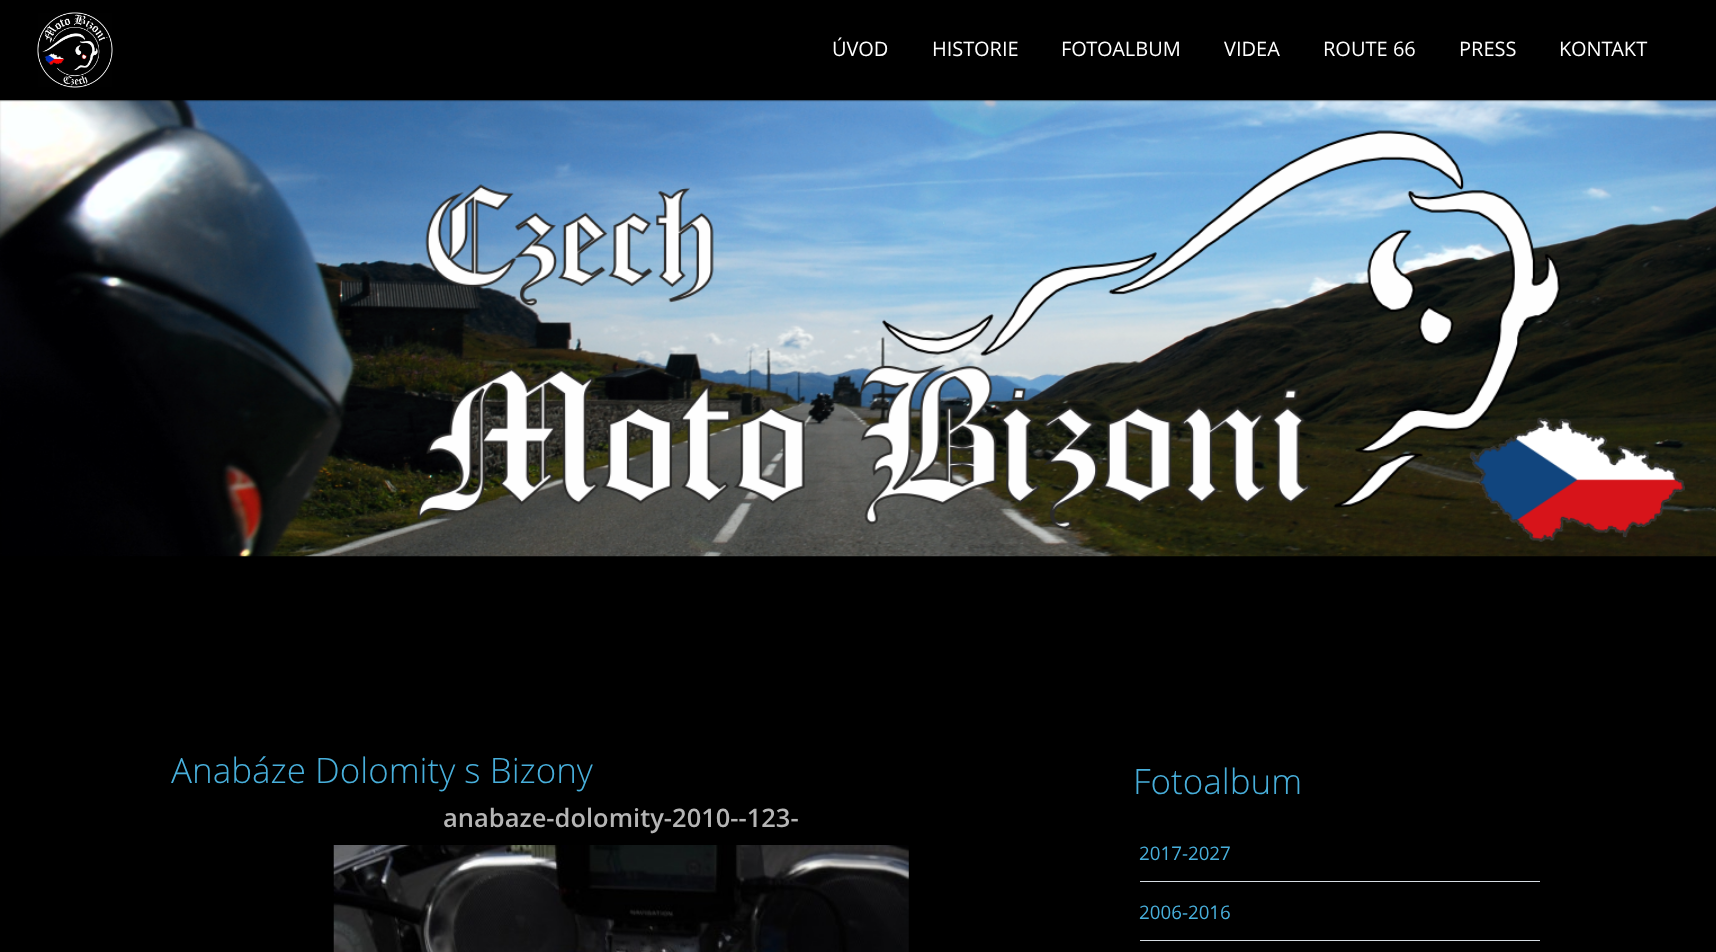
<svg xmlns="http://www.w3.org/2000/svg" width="1716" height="952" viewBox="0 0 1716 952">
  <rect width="100%" height="100%" fill="#000000"/>
  <image x="37" y="12" width="76" height="76" href="img1.png"/>
  <text x="832" y="56" font-family="Open Sans" font-size="20" fill="#ffffff">ÚVOD</text>
  <text x="932" y="56" font-family="Open Sans" font-size="20" fill="#ffffff">HISTORIE</text>
  <text x="1061" y="56" font-family="Open Sans" font-size="20" fill="#ffffff">FOTOALBUM</text>
  <text x="1224" y="56" font-family="Open Sans" font-size="20" fill="#ffffff">VIDEA</text>
  <text x="1323" y="56" font-family="Open Sans" font-size="20" fill="#ffffff">ROUTE 66</text>
  <text x="1459" y="56" font-family="Open Sans" font-size="20" fill="#ffffff">PRESS</text>
  <text x="1559" y="56" font-family="Open Sans" font-size="20" fill="#ffffff">KONTAKT</text>
  <image x="0" y="100" width="1716" height="457" href="img2.png"/>
  <text x="171" y="783" font-family="Open Sans" font-size="35" font-weight="300" fill="#48afdb">Anabáze Dolomity s Bizony</text>
  <text x="443" y="827" font-family="Open Sans" font-size="25.5" font-weight="600" fill="#b5b5b5">anabaze-dolomity-2010--123-</text>
  <image x="333" y="845" width="576" height="107" href="img3.png"/>
  <text x="1133" y="794" font-family="Open Sans" font-size="35" font-weight="300" fill="#48afdb">Fotoalbum</text>
  <rect x="1140" y="881" width="400" height="1" fill="#d6dde3"/>
  <text x="1139" y="860" font-family="Open Sans" font-size="18.75" fill="#48afdb">2017-2027</text>
  <rect x="1140" y="940" width="400" height="1" fill="#d6dde3"/>
  <text x="1139" y="919" font-family="Open Sans" font-size="18.75" fill="#48afdb">2006-2016</text>
</svg>
